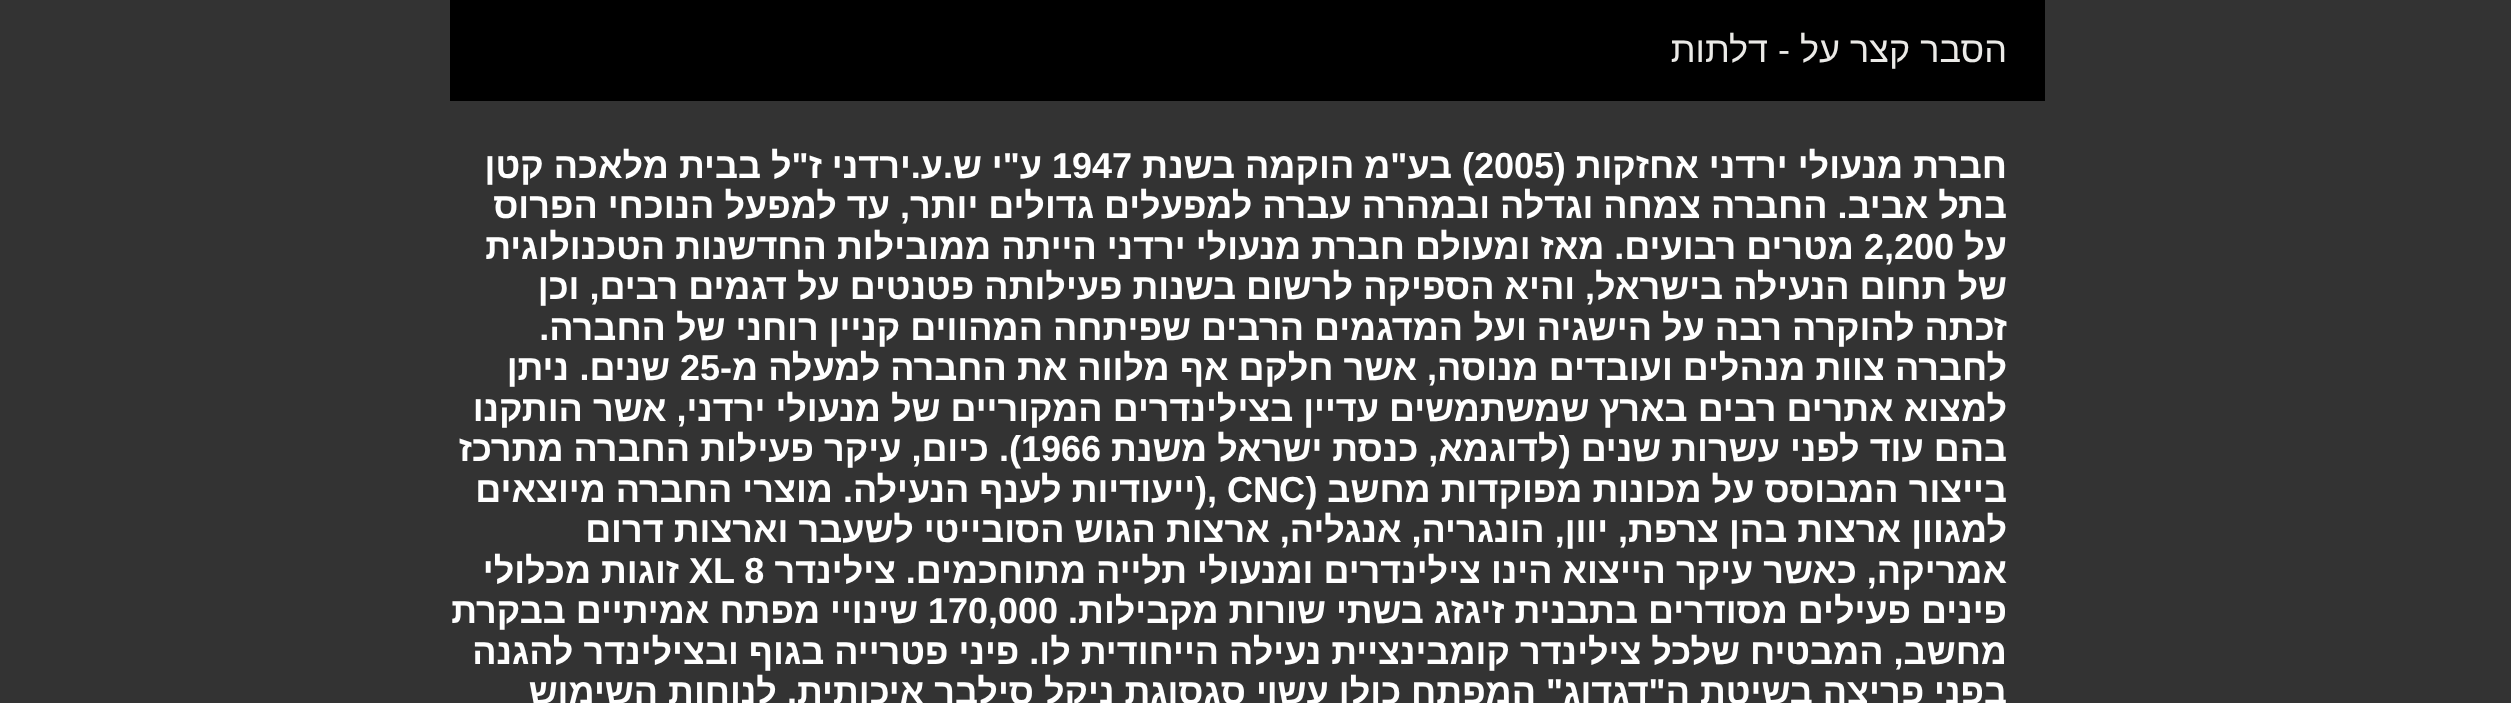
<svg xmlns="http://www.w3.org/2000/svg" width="2511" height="703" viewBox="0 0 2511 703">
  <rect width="100%" height="100%" fill="#333333"/>
  <rect x="450" y="0" width="1595" height="101" fill="#000000"/>
  <text x="2007" y="62" font-family="Liberation Sans" font-size="36" direction="rtl" fill="#ebeae7">הסבר קצר על - דלתות</text>
  <text x="2007" y="178" font-family="Liberation Sans" font-size="36" font-weight="bold" direction="rtl" fill="#ffffff">חברת מנעולי ירדני אחזקות (</text>
  <text x="1474" y="178" font-family="Liberation Sans" font-size="36" font-weight="bold" fill="#ffffff">2005</text>
  <text x="1474" y="178" font-family="Liberation Sans" font-size="36" font-weight="bold" direction="rtl" fill="#ffffff">) בע"מ הוקמה בשנת</text>
  <text x="1052" y="178" font-family="Liberation Sans" font-size="36" font-weight="bold" fill="#ffffff">1947</text>
  <text x="1042" y="178" font-family="Liberation Sans" font-size="36" font-weight="bold" direction="rtl" fill="#ffffff">ע"י</text>
  <text x="982" y="178" font-family="Liberation Sans" font-size="36" font-weight="bold" direction="rtl" fill="#ffffff">ש.ע.ירדני ז"ל בבית מלאכה קטן</text>
  <text x="2007" y="218" font-family="Liberation Sans" font-size="36" font-weight="bold" direction="rtl" fill="#ffffff">בתל אביב. החברה צמחה וגדלה ובמהרה עברה למפעלים גדולים יותר, עד למפעל הנוכחי הפרוס</text>
  <text x="2007" y="259" font-family="Liberation Sans" font-size="36" font-weight="bold" direction="rtl" fill="#ffffff">על</text>
  <text x="1864" y="259" font-family="Liberation Sans" font-size="36" font-weight="bold" fill="#ffffff">2,200</text>
  <text x="1854" y="259" font-family="Liberation Sans" font-size="36" font-weight="bold" direction="rtl" fill="#ffffff">מטרים רבועים. מאז ומעולם חברת מנעולי ירדני הייתה ממובילות החדשנות הטכנולוגית</text>
  <text x="2007" y="299" font-family="Liberation Sans" font-size="36" font-weight="bold" direction="rtl" fill="#ffffff">של תחום הנעילה בישראל, והיא הספיקה לרשום בשנות פעילותה פטנטים על דגמים רבים, וכן</text>
  <text x="2007" y="340" font-family="Liberation Sans" font-size="36" font-weight="bold" direction="rtl" fill="#ffffff">זכתה להוקרה רבה על הישגיה ועל המדגמים הרבים שפיתחה המהווים קניין רוחני של החברה.</text>
  <text x="2007" y="380" font-family="Liberation Sans" font-size="36" font-weight="bold" direction="rtl" fill="#ffffff">לחברה צוות מנהלים ועובדים מנוסה, אשר חלקם אף מלווה את החברה למעלה מ-</text>
  <text x="680" y="380" font-family="Liberation Sans" font-size="36" font-weight="bold" fill="#ffffff">25</text>
  <text x="670" y="380" font-family="Liberation Sans" font-size="36" font-weight="bold" direction="rtl" fill="#ffffff">שנים.</text>
  <text x="569" y="380" font-family="Liberation Sans" font-size="36" font-weight="bold" direction="rtl" fill="#ffffff">ניתן</text>
  <text x="2007" y="421" font-family="Liberation Sans" font-size="36" font-weight="bold" direction="rtl" fill="#ffffff">למצוא אתרים רבים בארץ שמשתמשים עדיין בצילינדרים המקוריים של מנעולי ירדני, אשר הותקנו</text>
  <text x="2007" y="461" font-family="Liberation Sans" font-size="36" font-weight="bold" direction="rtl" fill="#ffffff">בהם עוד לפני עשרות שנים (לדוגמא, כנסת ישראל משנת</text>
  <text x="1021" y="461" font-family="Liberation Sans" font-size="36" font-weight="bold" fill="#ffffff">1966</text>
  <text x="1021" y="461" font-family="Liberation Sans" font-size="36" font-weight="bold" direction="rtl" fill="#ffffff">). כיום, עיקר פעילות החברה מתרכז</text>
  <text x="2007" y="502" font-family="Liberation Sans" font-size="36" font-weight="bold" direction="rtl" fill="#ffffff">בייצור המבוסס על מכונות מפוקדות מחשב (</text>
  <text x="1195" y="502" font-family="Liberation Sans" font-size="36" font-weight="bold" fill="#ffffff">), CNC</text>
  <text x="1195" y="502" font-family="Liberation Sans" font-size="36" font-weight="bold" direction="rtl" fill="#ffffff">ייעודיות לענף הנעילה. מוצרי החברה מיוצאים</text>
  <text x="2007" y="542" font-family="Liberation Sans" font-size="36" font-weight="bold" direction="rtl" fill="#ffffff">למגוון ארצות בהן צרפת, יוון, הונגריה, אנגליה, ארצות הגוש הסובייטי לשעבר וארצות דרום</text>
  <text x="2007" y="583" font-family="Liberation Sans" font-size="36" font-weight="bold" direction="rtl" fill="#ffffff">אמריקה, כאשר עיקר הייצוא הינו צילינדרים ומנעולי תלייה מתוחכמים.</text>
  <text x="896" y="583" font-family="Liberation Sans" font-size="36" font-weight="bold" direction="rtl" fill="#ffffff">צילינדר</text>
  <text x="689" y="583" font-family="Liberation Sans" font-size="36" font-weight="bold" fill="#ffffff">XL 8</text>
  <text x="679" y="583" font-family="Liberation Sans" font-size="36" font-weight="bold" direction="rtl" fill="#ffffff">זוגות מכלולי</text>
  <text x="2007" y="623" font-family="Liberation Sans" font-size="36" font-weight="bold" direction="rtl" fill="#ffffff">פינים פעילים מסודרים בתבנית זיגזג בשתי שורות מקבילות.</text>
  <text x="928" y="623" font-family="Liberation Sans" font-size="36" font-weight="bold" fill="#ffffff">170,000</text>
  <text x="918" y="623" font-family="Liberation Sans" font-size="36" font-weight="bold" direction="rtl" fill="#ffffff">שינויי מפתח אמיתיים בבקרת</text>
  <text x="2007" y="664" font-family="Liberation Sans" font-size="36" font-weight="bold" direction="rtl" fill="#ffffff">מחשב, המבטיח</text>
  <text x="1740" y="664" font-family="Liberation Sans" font-size="36" font-weight="bold" direction="rtl" fill="#ffffff">שלכל צילינדר קומבינציית נעילה הייחודית לו. פיני פטרייה בגוף ובצילינדר להגנה</text>
  <text x="2007" y="704" font-family="Liberation Sans" font-size="36" font-weight="bold" direction="rtl" fill="#ffffff">בפני פריצה בשיטת ה"דגדוג" המפתח כולו עשוי סגסוגת ניקל סילבר איכותית. לנוחות השימוש</text>
</svg>
